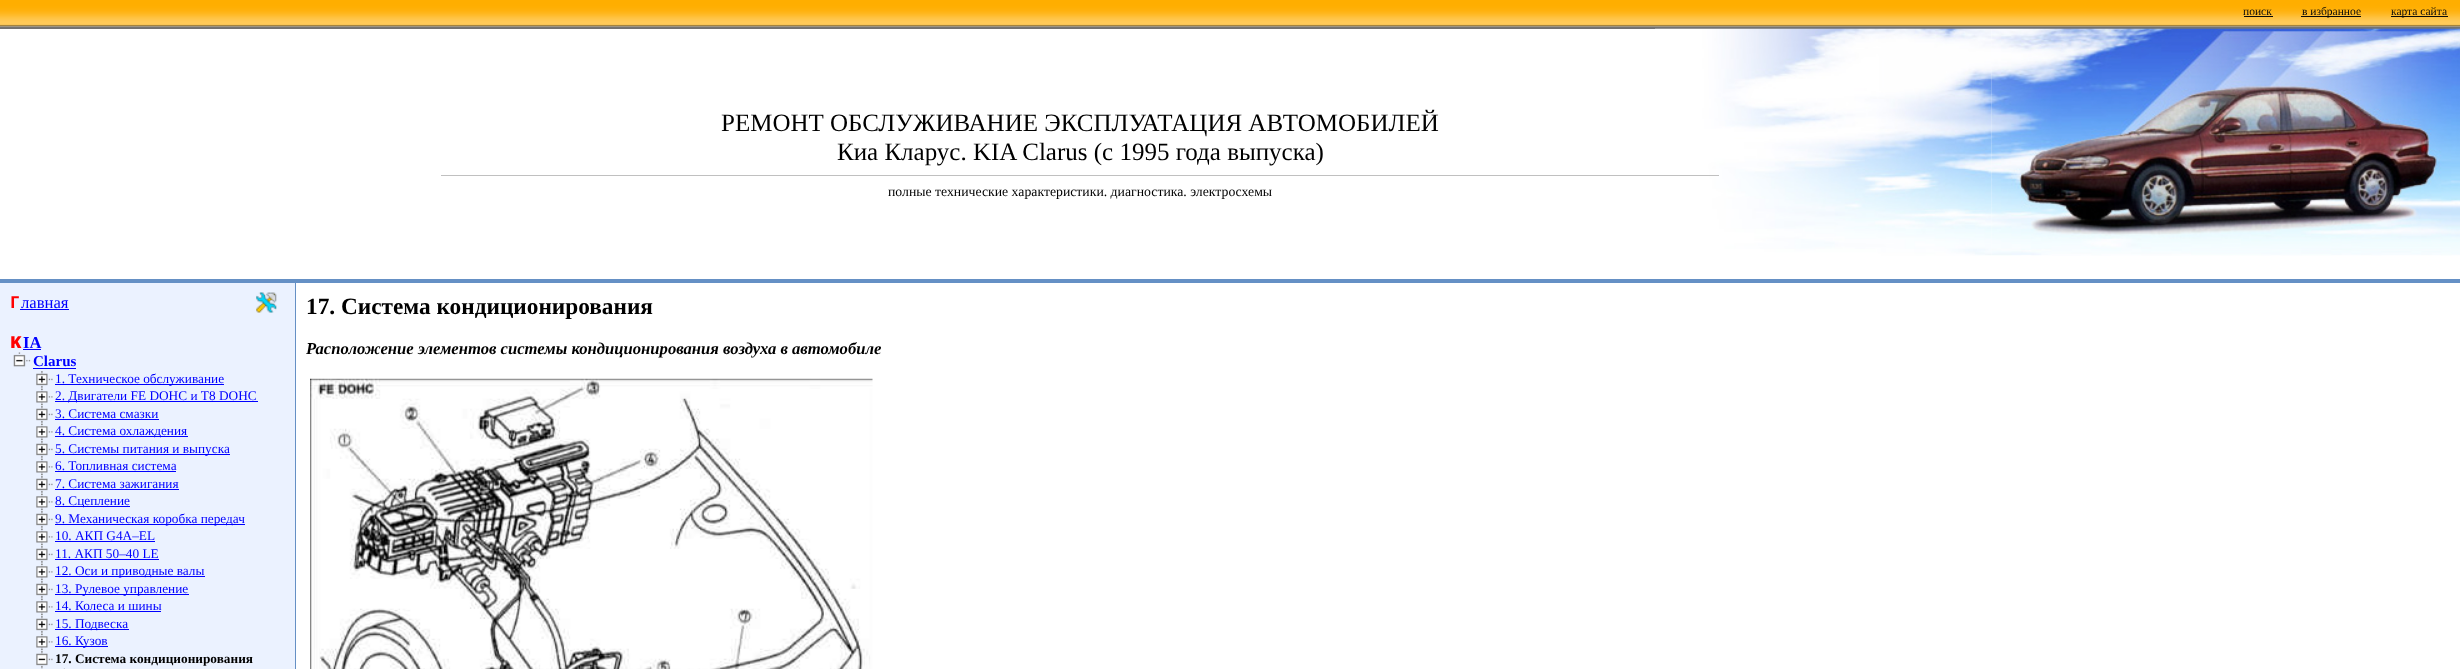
<svg xmlns="http://www.w3.org/2000/svg" width="2460" height="669" viewBox="0 0 2460 669">
  <rect width="100%" height="100%" fill="#ffffff"/>
  <image x="0" y="0" width="2460" height="29" href="img1.png"/>
  <text x="2243" y="15" font-family="Liberation Serif" font-size="11.5" fill="#0a0a0a">поиск</text>
  <rect x="2244" y="16" width="29" height="1" fill="#0a0a0a"/>
  <rect x="2301" y="16" width="60" height="1" fill="#0a0a0a"/>
  <text x="2302" y="15" font-family="Liberation Serif" font-size="11.5" fill="#0a0a0a">в избранное</text>
  <rect x="2391" y="16" width="57" height="1" fill="#0a0a0a"/>
  <text x="2391" y="15" font-family="Liberation Serif" font-size="11.5" fill="#0a0a0a">карта сайта</text>
  <image x="1655" y="28" width="337" height="228" href="img2.png"/>
  <text x="721" y="131" font-family="Liberation Serif" font-size="25" fill="#000000">РЕМОНТ ОБСЛУЖИВАНИЕ ЭКСПЛУАТАЦИЯ АВТОМОБИЛЕЙ</text>
  <text x="837" y="160" font-family="Liberation Serif" font-size="25" fill="#000000">Киа Кларус. KIA Clarus (с 1995 года выпуска)</text>
  <rect x="441" y="175" width="1278" height="1" fill="#c0c0c0"/>
  <text x="888" y="196" font-family="Liberation Serif" font-size="13.75" fill="#000000">полные технические характеристики. диагностика. электросхемы</text>
  <image x="1991" y="28" width="469" height="228" href="img3.png"/>
  <rect x="0" y="279" width="2460" height="4" fill="#6590c5"/>
  <rect x="0" y="283" width="295" height="386" fill="#ebf2ff"/>
  <image x="256" y="292" width="21" height="21" href="img4.png"/>
  <text x="10" y="308" font-family="Noto Sans" font-size="16.65" font-weight="bold" fill="#ff0000">Г</text>
  <text x="21" y="308" font-family="Liberation Serif" font-size="16.65" fill="#0000ff">лавная</text>
  <rect x="20" y="309" width="49" height="1" fill="#0000ff"/>
  <text x="10" y="348" font-family="Noto Sans" font-size="16.65" font-weight="900" fill="#ff0000">K</text>
  <text x="23" y="348" font-family="Liberation Serif" font-size="16.65" font-weight="bold" fill="#0000ff">IA</text>
  <rect x="23" y="349" width="18" height="1" fill="#0000ff"/>
  <image x="13" y="352" width="18" height="15" href="img5.png"/>
  <text x="33" y="366" font-family="Liberation Serif" font-size="15" font-weight="bold" fill="#0000ff">Clarus</text>
  <rect x="33" y="368" width="43" height="1" fill="#0000ff"/>
  <image x="41" y="371" width="2" height="18" href="img6.png"/>
  <image x="36" y="371" width="17" height="17" href="img7.png"/>
  <rect x="55" y="384" width="169" height="1" fill="#0000ff"/>
  <text x="55" y="383" font-family="Liberation Serif" font-size="13.3" fill="#0000ff">1. Техническое обслуживание</text>
  <image x="41" y="388" width="2" height="19" href="img8.png"/>
  <image x="36" y="388" width="17" height="18" href="img9.png"/>
  <rect x="55" y="401" width="203" height="1" fill="#0000ff"/>
  <text x="55" y="400" font-family="Liberation Serif" font-size="13.3" fill="#0000ff">2. Двигатели FE DOHC и Т8 DOHC</text>
  <image x="41" y="406" width="2" height="18" href="img10.png"/>
  <image x="36" y="406" width="17" height="17" href="img11.png"/>
  <text x="55" y="418" font-family="Liberation Serif" font-size="13.3" fill="#0000ff">3. Система смазки</text>
  <rect x="55" y="419" width="104" height="1" fill="#0000ff"/>
  <image x="41" y="423" width="2" height="19" href="img8.png"/>
  <image x="36" y="423" width="17" height="18" href="img9.png"/>
  <rect x="55" y="436" width="133" height="1" fill="#0000ff"/>
  <text x="55" y="435" font-family="Liberation Serif" font-size="13.3" fill="#0000ff">4. Система охлаждения</text>
  <image x="41" y="441" width="2" height="18" href="img10.png"/>
  <image x="36" y="441" width="17" height="17" href="img11.png"/>
  <rect x="55" y="454" width="175" height="1" fill="#0000ff"/>
  <text x="55" y="453" font-family="Liberation Serif" font-size="13.3" fill="#0000ff">5. Системы питания и выпуска</text>
  <image x="41" y="458" width="2" height="19" href="img8.png"/>
  <image x="36" y="458" width="17" height="18" href="img9.png"/>
  <text x="55" y="470" font-family="Liberation Serif" font-size="13.3" fill="#0000ff">6. Топливная система</text>
  <rect x="55" y="471" width="121" height="1" fill="#0000ff"/>
  <image x="41" y="476" width="2" height="18" href="img10.png"/>
  <image x="36" y="476" width="17" height="17" href="img11.png"/>
  <text x="55" y="488" font-family="Liberation Serif" font-size="13.3" fill="#0000ff">7. Система зажигания</text>
  <rect x="55" y="489" width="124" height="1" fill="#0000ff"/>
  <image x="41" y="493" width="2" height="19" href="img8.png"/>
  <image x="36" y="493" width="17" height="18" href="img9.png"/>
  <rect x="55" y="506" width="75" height="1" fill="#0000ff"/>
  <text x="55" y="505" font-family="Liberation Serif" font-size="13.3" fill="#0000ff">8. Сцепление</text>
  <image x="41" y="511" width="2" height="18" href="img10.png"/>
  <image x="36" y="511" width="17" height="17" href="img11.png"/>
  <rect x="55" y="524" width="190" height="1" fill="#0000ff"/>
  <text x="55" y="523" font-family="Liberation Serif" font-size="13.3" fill="#0000ff">9. Механическая коробка передач</text>
  <image x="41" y="528" width="2" height="19" href="img8.png"/>
  <image x="36" y="528" width="17" height="18" href="img9.png"/>
  <text x="55" y="540" font-family="Liberation Serif" font-size="13.3" fill="#0000ff">10. АКП G4A–EL</text>
  <rect x="55" y="541" width="100" height="1" fill="#0000ff"/>
  <image x="41" y="546" width="2" height="18" href="img10.png"/>
  <image x="36" y="546" width="17" height="17" href="img11.png"/>
  <text x="55" y="558" font-family="Liberation Serif" font-size="13.3" fill="#0000ff">11. АКП 50–40 LE</text>
  <rect x="55" y="559" width="104" height="1" fill="#0000ff"/>
  <image x="41" y="563" width="2" height="19" href="img8.png"/>
  <image x="36" y="563" width="17" height="18" href="img9.png"/>
  <rect x="55" y="576" width="150" height="1" fill="#0000ff"/>
  <text x="55" y="575" font-family="Liberation Serif" font-size="13.3" fill="#0000ff">12. Оси и приводные валы</text>
  <image x="41" y="581" width="2" height="18" href="img10.png"/>
  <image x="36" y="581" width="17" height="17" href="img12.png"/>
  <rect x="55" y="594" width="134" height="1" fill="#0000ff"/>
  <text x="55" y="593" font-family="Liberation Serif" font-size="13.3" fill="#0000ff">13. Рулевое управление</text>
  <image x="41" y="598" width="2" height="19" href="img8.png"/>
  <image x="36" y="598" width="17" height="18" href="img9.png"/>
  <text x="55" y="610" font-family="Liberation Serif" font-size="13.3" fill="#0000ff">14. Колеса и шины</text>
  <rect x="55" y="611" width="106" height="1" fill="#0000ff"/>
  <image x="41" y="616" width="2" height="18" href="img10.png"/>
  <image x="36" y="616" width="17" height="17" href="img11.png"/>
  <rect x="55" y="629" width="74" height="1" fill="#0000ff"/>
  <text x="55" y="628" font-family="Liberation Serif" font-size="13.3" fill="#0000ff">15. Подвеска</text>
  <image x="41" y="633" width="2" height="19" href="img8.png"/>
  <image x="36" y="633" width="17" height="18" href="img9.png"/>
  <rect x="55" y="646" width="53" height="1" fill="#0000ff"/>
  <text x="55" y="645" font-family="Liberation Serif" font-size="13.3" fill="#0000ff">16. Кузов</text>
  <image x="41" y="651" width="2" height="18" href="img10.png"/>
  <image x="36" y="651" width="17" height="17" href="img13.png"/>
  <text x="55" y="663" font-family="Liberation Serif" font-size="13.3" font-weight="bold" fill="#000000">17. Система кондиционирования</text>
  <image x="41" y="668" width="2" height="1" href="img14.png"/>
  <rect x="64" y="668" width="1" height="1" fill="#e4ebf7"/>
  <image x="63" y="668" width="2" height="1" href="img15.png"/>
  <rect x="295" y="283" width="1" height="386" fill="#6590c5"/>
  <text x="306" y="314" font-family="Liberation Serif" font-size="23.3" font-weight="bold" fill="#000000">17. Система кондиционирования</text>
  <text x="306" y="354" font-family="Liberation Serif" font-size="16.65" font-weight="bold" font-style="italic" fill="#000000">Расположение элементов системы кондиционирования воздуха в автомобиле</text>
  <image x="310" y="378" width="563" height="291" href="img16.png"/>
</svg>
